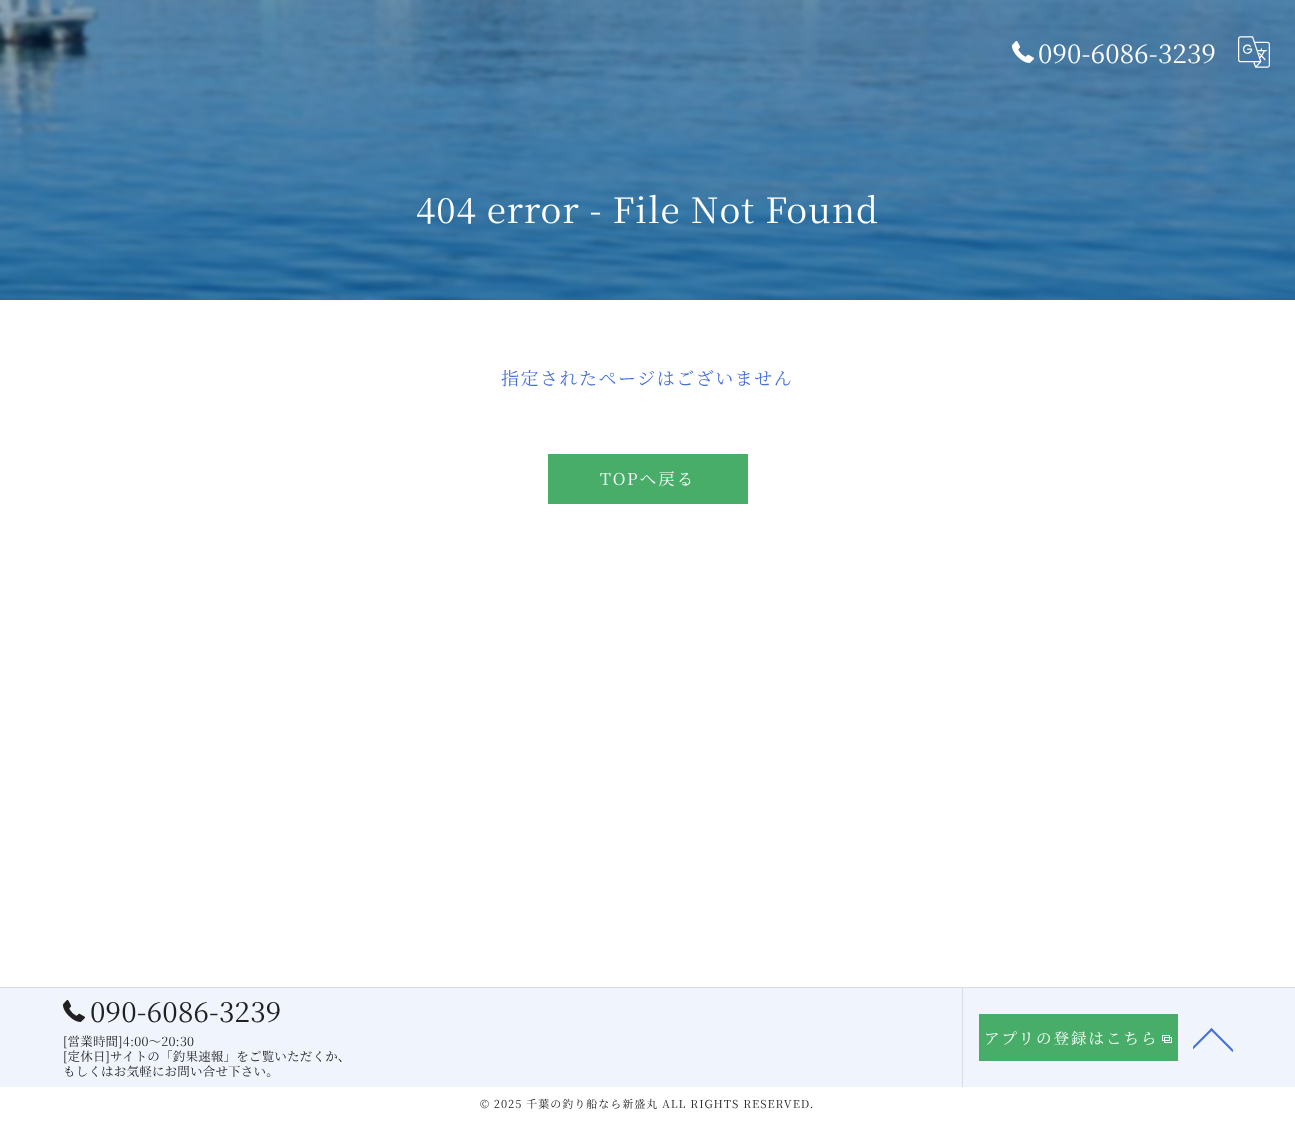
<svg xmlns="http://www.w3.org/2000/svg" width="1295" height="1129" viewBox="0 0 1295 1129">
  <defs>
    <clipPath id="clip1"><rect x="1193" y="1018" width="40" height="40"/></clipPath>
  </defs>
  <rect width="100%" height="100%" fill="#ffffff"/>
  <rect x="0" y="0" width="1295" height="300" fill="#00325d"/>
  <image x="0" y="0" width="1295" height="300" href="img3.png"/>
  <image x="1012" y="41" width="22" height="22" href="img1.png"/>
  <text x="1038" y="63" font-family="Noto Serif JP" font-size="26" letter-spacing="0.2" fill="#ffffff">090-6086-3239</text>
  <image x="1238" y="36" width="32" height="32" href="img2.png"/>
  <text x="416" y="223" font-family="Noto Serif JP" font-size="35" letter-spacing="1" fill="#ffffff">404 error - File Not Found</text>
  <text x="501" y="385" font-family="Noto Serif JP" font-size="18" letter-spacing="1.5" fill="#4670da">指定されたページはございません</text>
  <rect x="548" y="454" width="200" height="50" fill="#47ad68"/>
  <text x="600" y="485" font-family="Noto Serif JP" font-size="16.5" letter-spacing="2" fill="#ffffff">TOPへ戻る</text>
  <rect x="0" y="988" width="1295" height="99" fill="#f0f4fd"/>
  <rect x="0" y="987" width="1295" height="1" fill="#d8dce4"/>
  <rect x="962" y="988" width="1" height="99" fill="#d8dce4"/>
  <image x="63" y="1000" width="22" height="22" href="img4.png"/>
  <text x="90" y="1022" font-family="Noto Serif JP" font-size="28" letter-spacing="0.2" fill="#212121">090-6086-3239</text>
  <text x="63" y="1046" font-family="Noto Serif JP" font-size="12.5" letter-spacing="0.2" fill="#212121">[営業時間]4:00〜20:30</text>
  <text x="63" y="1061" font-family="Noto Serif JP" font-size="12.5" letter-spacing="0.2" fill="#212121">[定休日]サイトの「釣果速報」をご覧いただくか、</text>
  <text x="63" y="1076" font-family="Noto Serif JP" font-size="12.5" letter-spacing="0.2" fill="#212121">もしくはお気軽にお問い合せ下さい。</text>
  <rect x="979" y="1014" width="199" height="47" fill="#47ad68"/>
  <text x="984" y="1044" font-family="Noto Serif JP" font-size="15.5" letter-spacing="2" fill="#ffffff">アプリの登録はこちら</text>
  <rect x="1164.5" y="1037.5" width="7" height="5" fill="none" stroke="#ffffff"/>
  <rect x="1162.5" y="1035.5" width="7" height="5" fill="none" stroke="#ffffff"/>
  <g clip-path="url(#clip1)">
    <path d="M1211.5 1028L1234 1050.5L1232.5 1052L1210 1029.5Z" fill="#4670da"/>
    <path d="M1211.5 1028L1213 1029.5L1190.5 1052L1189 1050.5Z" fill="#4670da"/>
  </g>
  <text x="480" y="1108" font-family="Noto Serif JP" font-size="11" letter-spacing="1" fill="#212121">© 2025 千葉の釣り船なら新盛丸 ALL RIGHTS RESERVED.</text>
</svg>
